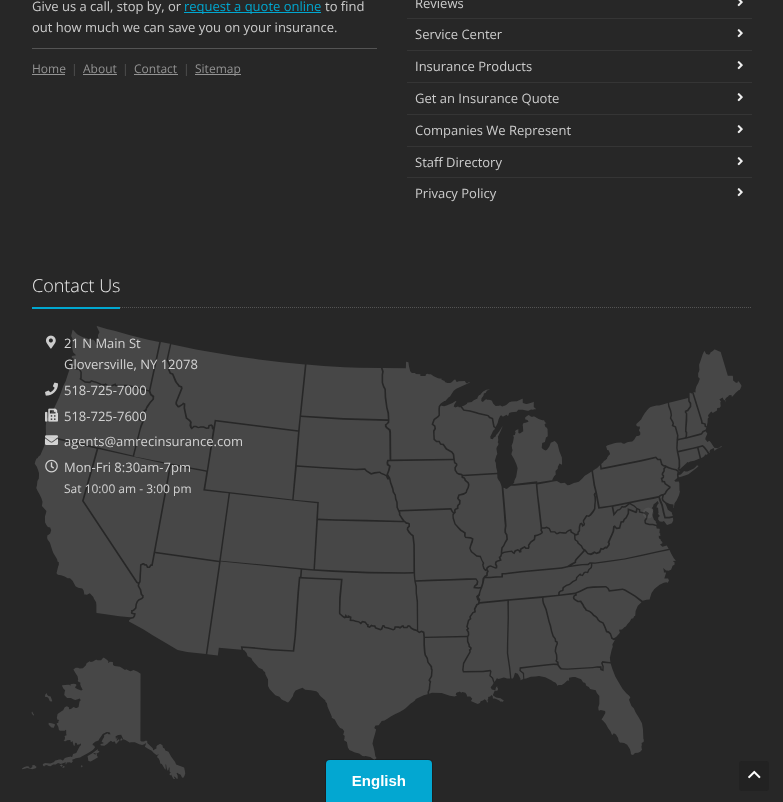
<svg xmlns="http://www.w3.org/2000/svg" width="783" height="802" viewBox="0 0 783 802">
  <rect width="100%" height="100%" fill="#272727"/>
  <text x="32" y="11" font-family="Open Sans" font-size="13" fill="#cccccc">Give us a call, stop by, or</text>
  <rect x="184" y="12" width="137" height="1" fill="#01a7d0"/>
  <text x="184" y="11" font-family="Open Sans" font-size="13" fill="#01a7d0">request a quote online</text>
  <text x="325" y="11" font-family="Open Sans" font-size="13" fill="#cccccc">to find</text>
  <text x="32" y="32" font-family="Open Sans" font-size="13" fill="#cccccc">out how much we can save you on your insurance.</text>
  <rect x="32" y="48" width="345" height="1" fill="#545454"/>
  <text x="32" y="73" font-family="Open Sans" font-size="12" fill="#939393">Home</text>
  <rect x="32" y="74" width="33" height="1" fill="#939393"/>
  <text x="71" y="73" font-family="Open Sans" font-size="12" fill="#555555">|</text>
  <text x="83" y="73" font-family="Open Sans" font-size="12" fill="#939393">About</text>
  <rect x="83" y="74" width="34" height="1" fill="#939393"/>
  <text x="122" y="73" font-family="Open Sans" font-size="12" fill="#555555">|</text>
  <text x="134" y="73" font-family="Open Sans" font-size="12" fill="#939393">Contact</text>
  <rect x="134" y="74" width="44" height="1" fill="#939393"/>
  <text x="183" y="73" font-family="Open Sans" font-size="12" fill="#555555">|</text>
  <rect x="195" y="74" width="46" height="1" fill="#939393"/>
  <text x="195" y="73" font-family="Open Sans" font-size="12" fill="#939393">Sitemap</text>
  <text x="415" y="8" font-family="Open Sans" font-size="13" fill="#cccccc">Reviews</text>
  <image x="737" y="0" width="6" height="7" href="img1.png"/>
  <rect x="407" y="18" width="345" height="1" fill="#353535"/>
  <text x="415" y="39" font-family="Open Sans" font-size="13" fill="#cccccc">Service Center</text>
  <image x="737" y="29" width="6" height="9" href="img2.png"/>
  <rect x="407" y="50" width="345" height="1" fill="#353535"/>
  <text x="415" y="71" font-family="Open Sans" font-size="13" fill="#cccccc">Insurance Products</text>
  <image x="737" y="61" width="6" height="9" href="img2.png"/>
  <rect x="407" y="82" width="345" height="1" fill="#353535"/>
  <text x="415" y="103" font-family="Open Sans" font-size="13" fill="#cccccc">Get an Insurance Quote</text>
  <image x="737" y="93" width="6" height="9" href="img2.png"/>
  <rect x="407" y="114" width="345" height="1" fill="#353535"/>
  <text x="415" y="135" font-family="Open Sans" font-size="13" fill="#cccccc">Companies We Represent</text>
  <image x="737" y="125" width="6" height="9" href="img2.png"/>
  <rect x="407" y="146" width="345" height="1" fill="#353535"/>
  <text x="415" y="167" font-family="Open Sans" font-size="13" fill="#cccccc">Staff Directory</text>
  <image x="737" y="157" width="6" height="9" href="img2.png"/>
  <rect x="407" y="177" width="345" height="1" fill="#353535"/>
  <text x="415" y="198" font-family="Open Sans" font-size="13" fill="#cccccc">Privacy Policy</text>
  <image x="737" y="188" width="6" height="9" href="img2.png"/>
  <image x="22" y="326" width="720" height="453" href="img3.png"/>
  <path d="M32 307.5H752" fill="none" stroke="#545454" stroke-dasharray="1 1"/>
  <rect x="32" y="307" width="88" height="2" fill="#01a7d0"/>
  <text x="32" y="292" font-family="Open Sans" font-size="18" font-weight="300" fill="#eeeeee">Contact Us</text>
  <image x="46" y="335" width="10" height="14" href="img4.png"/>
  <text x="64" y="348" font-family="Open Sans" font-size="13" fill="#d3d3d3">21 N Main St</text>
  <text x="64" y="369" font-family="Open Sans" font-size="13" fill="#d3d3d3">Gloversville, NY 12078</text>
  <image x="45" y="382" width="13" height="14" href="img5.png"/>
  <text x="64" y="395" font-family="Open Sans" font-size="13" fill="#d3d3d3">518-725-7000</text>
  <image x="45" y="408" width="13" height="14" href="img6.png"/>
  <text x="64" y="421" font-family="Open Sans" font-size="13" fill="#d3d3d3">518-725-7600</text>
  <image x="45" y="435" width="13" height="10" href="img7.png"/>
  <text x="64" y="446" font-family="Open Sans" font-size="13" fill="#d3d3d3">agents@amrecinsurance.com</text>
  <image x="45" y="459" width="13" height="14" href="img8.png"/>
  <text x="64" y="472" font-family="Open Sans" font-size="13" fill="#d3d3d3">Mon-Fri 8:30am-7pm</text>
  <text x="64" y="493" font-family="Open Sans" font-size="12" fill="#d3d3d3">Sat 10:00 am - 3:00 pm</text>
  <image x="325" y="759" width="108" height="43" href="img9.png"/>
  <rect x="739" y="761" width="30" height="30" rx="3" fill="#222222"/>
  <image x="748" y="770" width="13" height="9" href="img10.png"/>
</svg>
